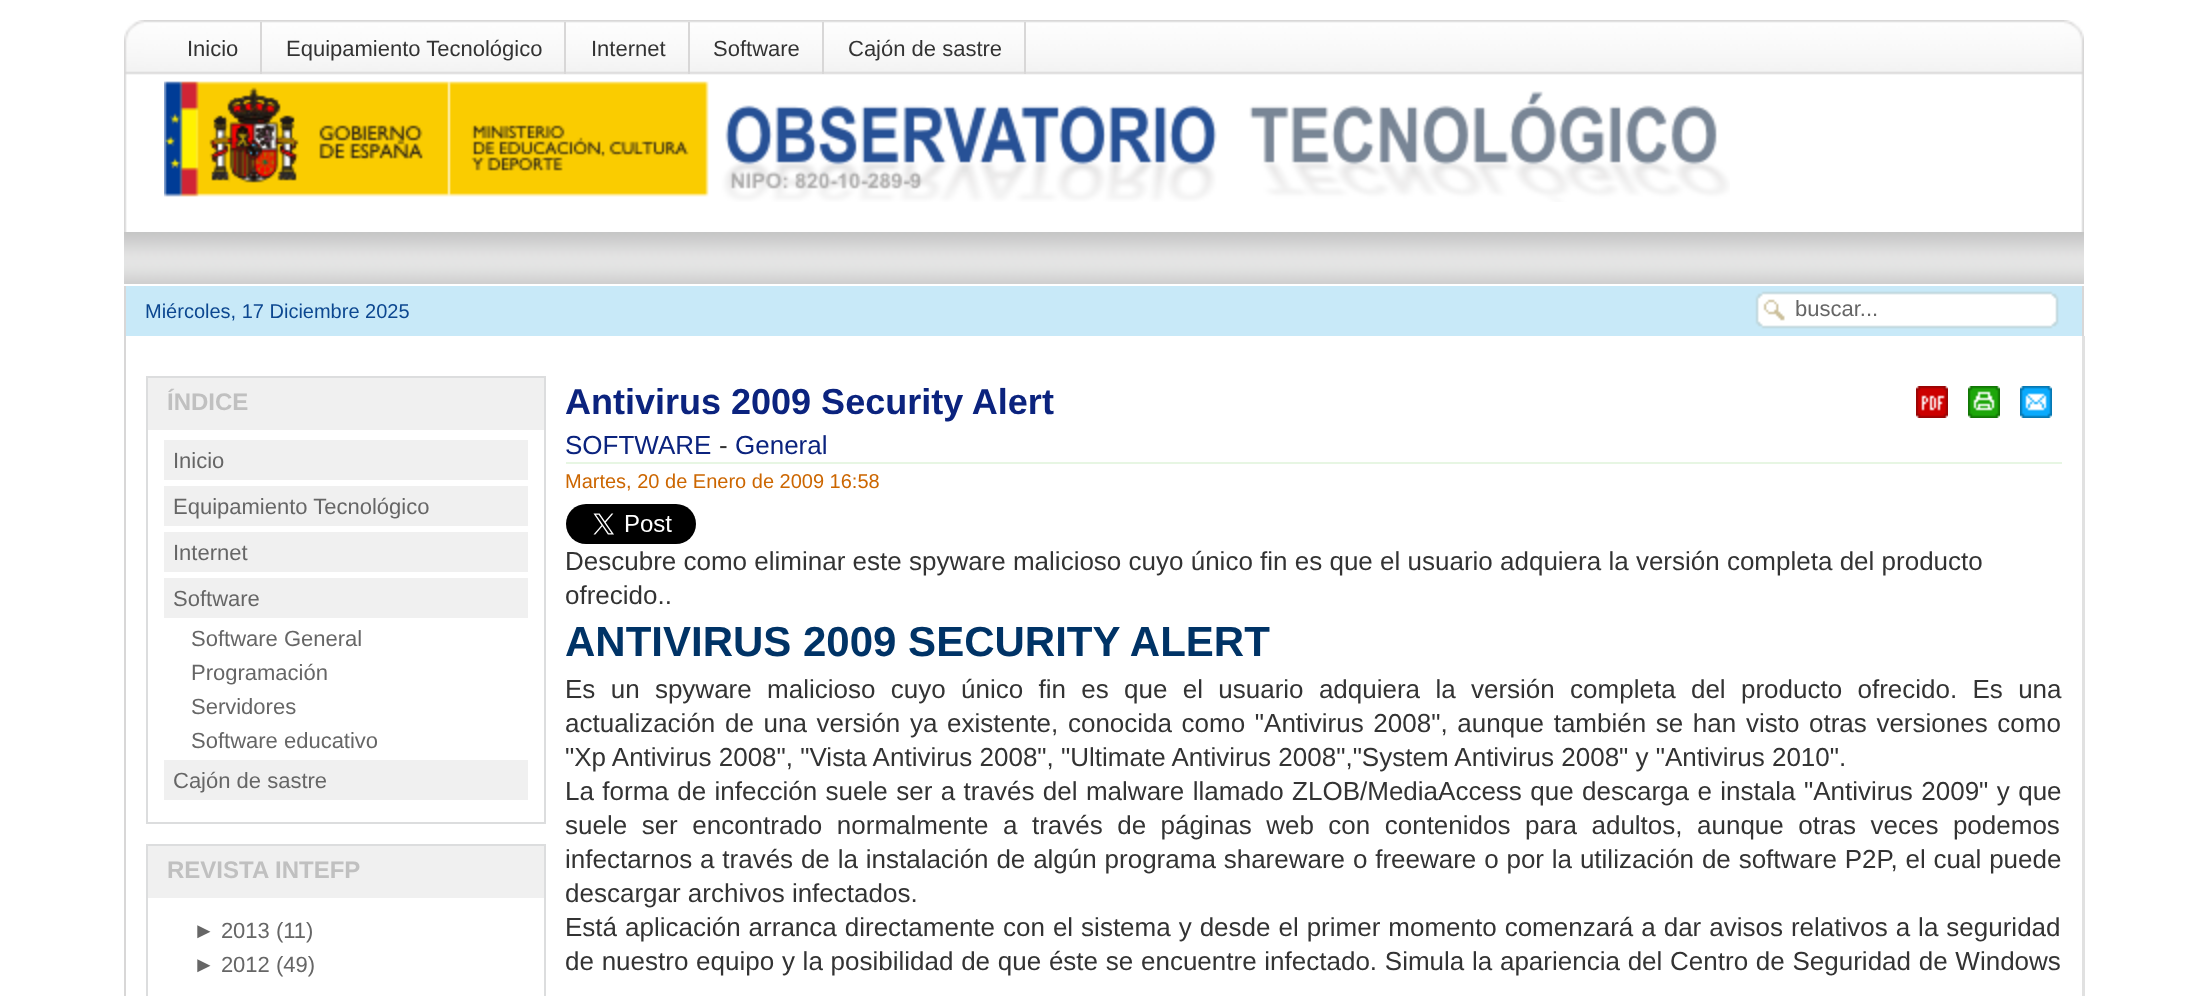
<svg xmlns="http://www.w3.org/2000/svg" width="2205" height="996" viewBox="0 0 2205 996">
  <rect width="100%" height="100%" fill="#ffffff"/>
  <image x="144" y="20" width="1920" height="55" href="img1.png"/>
  <image x="124" y="20" width="20" height="212" href="img2.png"/>
  <rect x="260" y="22" width="2" height="52" fill="#d8d7d7"/>
  <text x="187" y="56" font-family="Liberation Sans" font-size="22" fill="#333333">Inicio</text>
  <rect x="564" y="22" width="2" height="52" fill="#d8d7d7"/>
  <text x="286" y="56" font-family="Liberation Sans" font-size="22" fill="#333333">Equipamiento Tecnológico</text>
  <rect x="688" y="22" width="2" height="52" fill="#d8d7d7"/>
  <text x="591" y="56" font-family="Liberation Sans" font-size="22" fill="#333333">Internet</text>
  <rect x="822" y="22" width="2" height="52" fill="#d8d7d7"/>
  <text x="713" y="56" font-family="Liberation Sans" font-size="22" fill="#333333">Software</text>
  <rect x="1024" y="22" width="2" height="52" fill="#d8d7d7"/>
  <text x="848" y="56" font-family="Liberation Sans" font-size="22" fill="#333333">Cajón de sastre</text>
  <image x="164" y="81" width="1566" height="121" href="img3.png"/>
  <image x="2064" y="20" width="20" height="212" href="img4.png"/>
  <image x="124" y="232" width="1960" height="52" href="img5.png"/>
  <rect x="126" y="286" width="1956" height="50" fill="#c8e9f8"/>
  <rect x="2082" y="286" width="2" height="50" fill="#d8d7d7"/>
  <rect x="124" y="286" width="2" height="710" fill="#d8d7d7"/>
  <text x="145" y="318" font-family="Liberation Sans" font-size="20" fill="#0c4790">Miércoles, 17 Diciembre 2025</text>
  <image x="1755" y="291" width="304" height="38" href="img6.png"/>
  <text x="1795" y="316" font-family="Liberation Sans" font-size="22" fill="#666666">buscar...</text>
  <rect x="2082" y="336" width="3" height="660" fill="#e1e1e1"/>
  <rect x="147" y="377" width="398" height="446" fill="none" stroke="#dcddde" stroke-width="2"/>
  <rect x="148" y="378" width="396" height="52" fill="#f0f0f0"/>
  <text x="167" y="410" font-family="Liberation Sans" font-size="24" font-weight="bold" fill="#c0c0c0">ÍNDICE</text>
  <rect x="164" y="440" width="364" height="40" fill="#f0f0f0"/>
  <text x="173" y="468" font-family="Liberation Sans" font-size="22" fill="#666666">Inicio</text>
  <rect x="164" y="486" width="364" height="40" fill="#f0f0f0"/>
  <text x="173" y="514" font-family="Liberation Sans" font-size="22" fill="#666666">Equipamiento Tecnológico</text>
  <rect x="164" y="532" width="364" height="40" fill="#f0f0f0"/>
  <text x="173" y="560" font-family="Liberation Sans" font-size="22" fill="#666666">Internet</text>
  <rect x="164" y="578" width="364" height="40" fill="#f0f0f0"/>
  <text x="173" y="606" font-family="Liberation Sans" font-size="22" fill="#666666">Software</text>
  <text x="191" y="646" font-family="Liberation Sans" font-size="22" fill="#666666">Software General</text>
  <text x="191" y="680" font-family="Liberation Sans" font-size="22" fill="#666666">Programación</text>
  <text x="191" y="714" font-family="Liberation Sans" font-size="22" fill="#666666">Servidores</text>
  <text x="191" y="748" font-family="Liberation Sans" font-size="22" fill="#666666">Software educativo</text>
  <rect x="164" y="760" width="364" height="40" fill="#f0f0f0"/>
  <text x="173" y="788" font-family="Liberation Sans" font-size="22" fill="#666666">Cajón de sastre</text>
  <rect x="147" y="845" width="398" height="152" fill="none" stroke="#dcddde" stroke-width="2"/>
  <rect x="148" y="846" width="396" height="52" fill="#f0f0f0"/>
  <text x="167" y="878" font-family="Liberation Sans" font-size="24" font-weight="bold" fill="#c0c0c0">REVISTA INTEFP</text>
  <text x="193" y="938" font-family="Liberation Sans" font-size="22" fill="#666666">► 2013 (11)</text>
  <text x="193" y="972" font-family="Liberation Sans" font-size="22" fill="#666666">► 2012 (49)</text>
  <text x="565" y="414" font-family="Liberation Sans" font-size="36" font-weight="bold" fill="#0b237e">Antivirus 2009 Security Alert</text>
  <image x="1916" y="386" width="32" height="32" href="img7.png"/>
  <image x="1968" y="386" width="32" height="32" href="img8.png"/>
  <image x="2020" y="386" width="32" height="32" href="img9.png"/>
  <text x="565" y="454" font-family="Liberation Sans" font-size="26" fill="#0b237e">SOFTWARE</text>
  <text x="719" y="454" font-family="Liberation Sans" font-size="26" fill="#333333">-</text>
  <text x="735" y="454" font-family="Liberation Sans" font-size="26" fill="#0b237e">General</text>
  <rect x="566" y="462" width="1496" height="2" fill="#e7f6e3"/>
  <text x="565" y="488" font-family="Liberation Sans" font-size="20" fill="#cc6600">Martes, 20 de Enero de 2009 16:58</text>
  <image x="566" y="504" width="130" height="40" href="img10.png"/>
  <text x="565" y="570" font-family="Liberation Sans" font-size="26" fill="#333333">Descubre como eliminar este spyware malicioso cuyo único fin es que el usuario adquiera la versión completa del producto</text>
  <text x="565" y="604" font-family="Liberation Sans" font-size="26" fill="#333333">ofrecido..</text>
  <text x="565" y="656" font-family="Liberation Sans" font-size="42" font-weight="bold" fill="#003366">ANTIVIRUS 2009 SECURITY ALERT</text>
  <text x="565" y="698" word-spacing="8.1" font-family="Liberation Sans" font-size="26" fill="#333333">Es un spyware malicioso cuyo único fin es que el usuario adquiera la versión completa del producto ofrecido. Es una</text>
  <text x="565" y="732" word-spacing="2.4" font-family="Liberation Sans" font-size="26" fill="#333333">actualización de una versión ya existente, conocida como "Antivirus 2008", aunque también se han visto otras versiones como</text>
  <text x="565" y="766" font-family="Liberation Sans" font-size="26" fill="#333333">"Xp Antivirus 2008", "Vista Antivirus 2008", "Ultimate Antivirus 2008","System Antivirus 2008" y "Antivirus 2010".</text>
  <text x="565" y="800" word-spacing="1.2" font-family="Liberation Sans" font-size="26" fill="#333333">La forma de infección suele ser a través del malware llamado ZLOB/MediaAccess que descarga e instala "Antivirus 2009" y que</text>
  <text x="565" y="834" word-spacing="7.25" font-family="Liberation Sans" font-size="26" fill="#333333">suele ser encontrado normalmente a través de páginas web con contenidos para adultos, aunque otras veces podemos</text>
  <text x="565" y="868" word-spacing="0.6" font-family="Liberation Sans" font-size="26" fill="#333333">infectarnos a través de la instalación de algún programa shareware o freeware o por la utilización de software P2P, el cual puede</text>
  <text x="565" y="902" font-family="Liberation Sans" font-size="26" fill="#333333">descargar archivos infectados.</text>
  <text x="565" y="936" word-spacing="0.75" font-family="Liberation Sans" font-size="26" fill="#333333">Está aplicación arranca directamente con el sistema y desde el primer momento comenzará a dar avisos relativos a la seguridad</text>
  <text x="565" y="970" word-spacing="0.5" font-family="Liberation Sans" font-size="26" fill="#333333">de nuestro equipo y la posibilidad de que éste se encuentre infectado. Simula la apariencia del Centro de Seguridad de Windows</text>
</svg>
